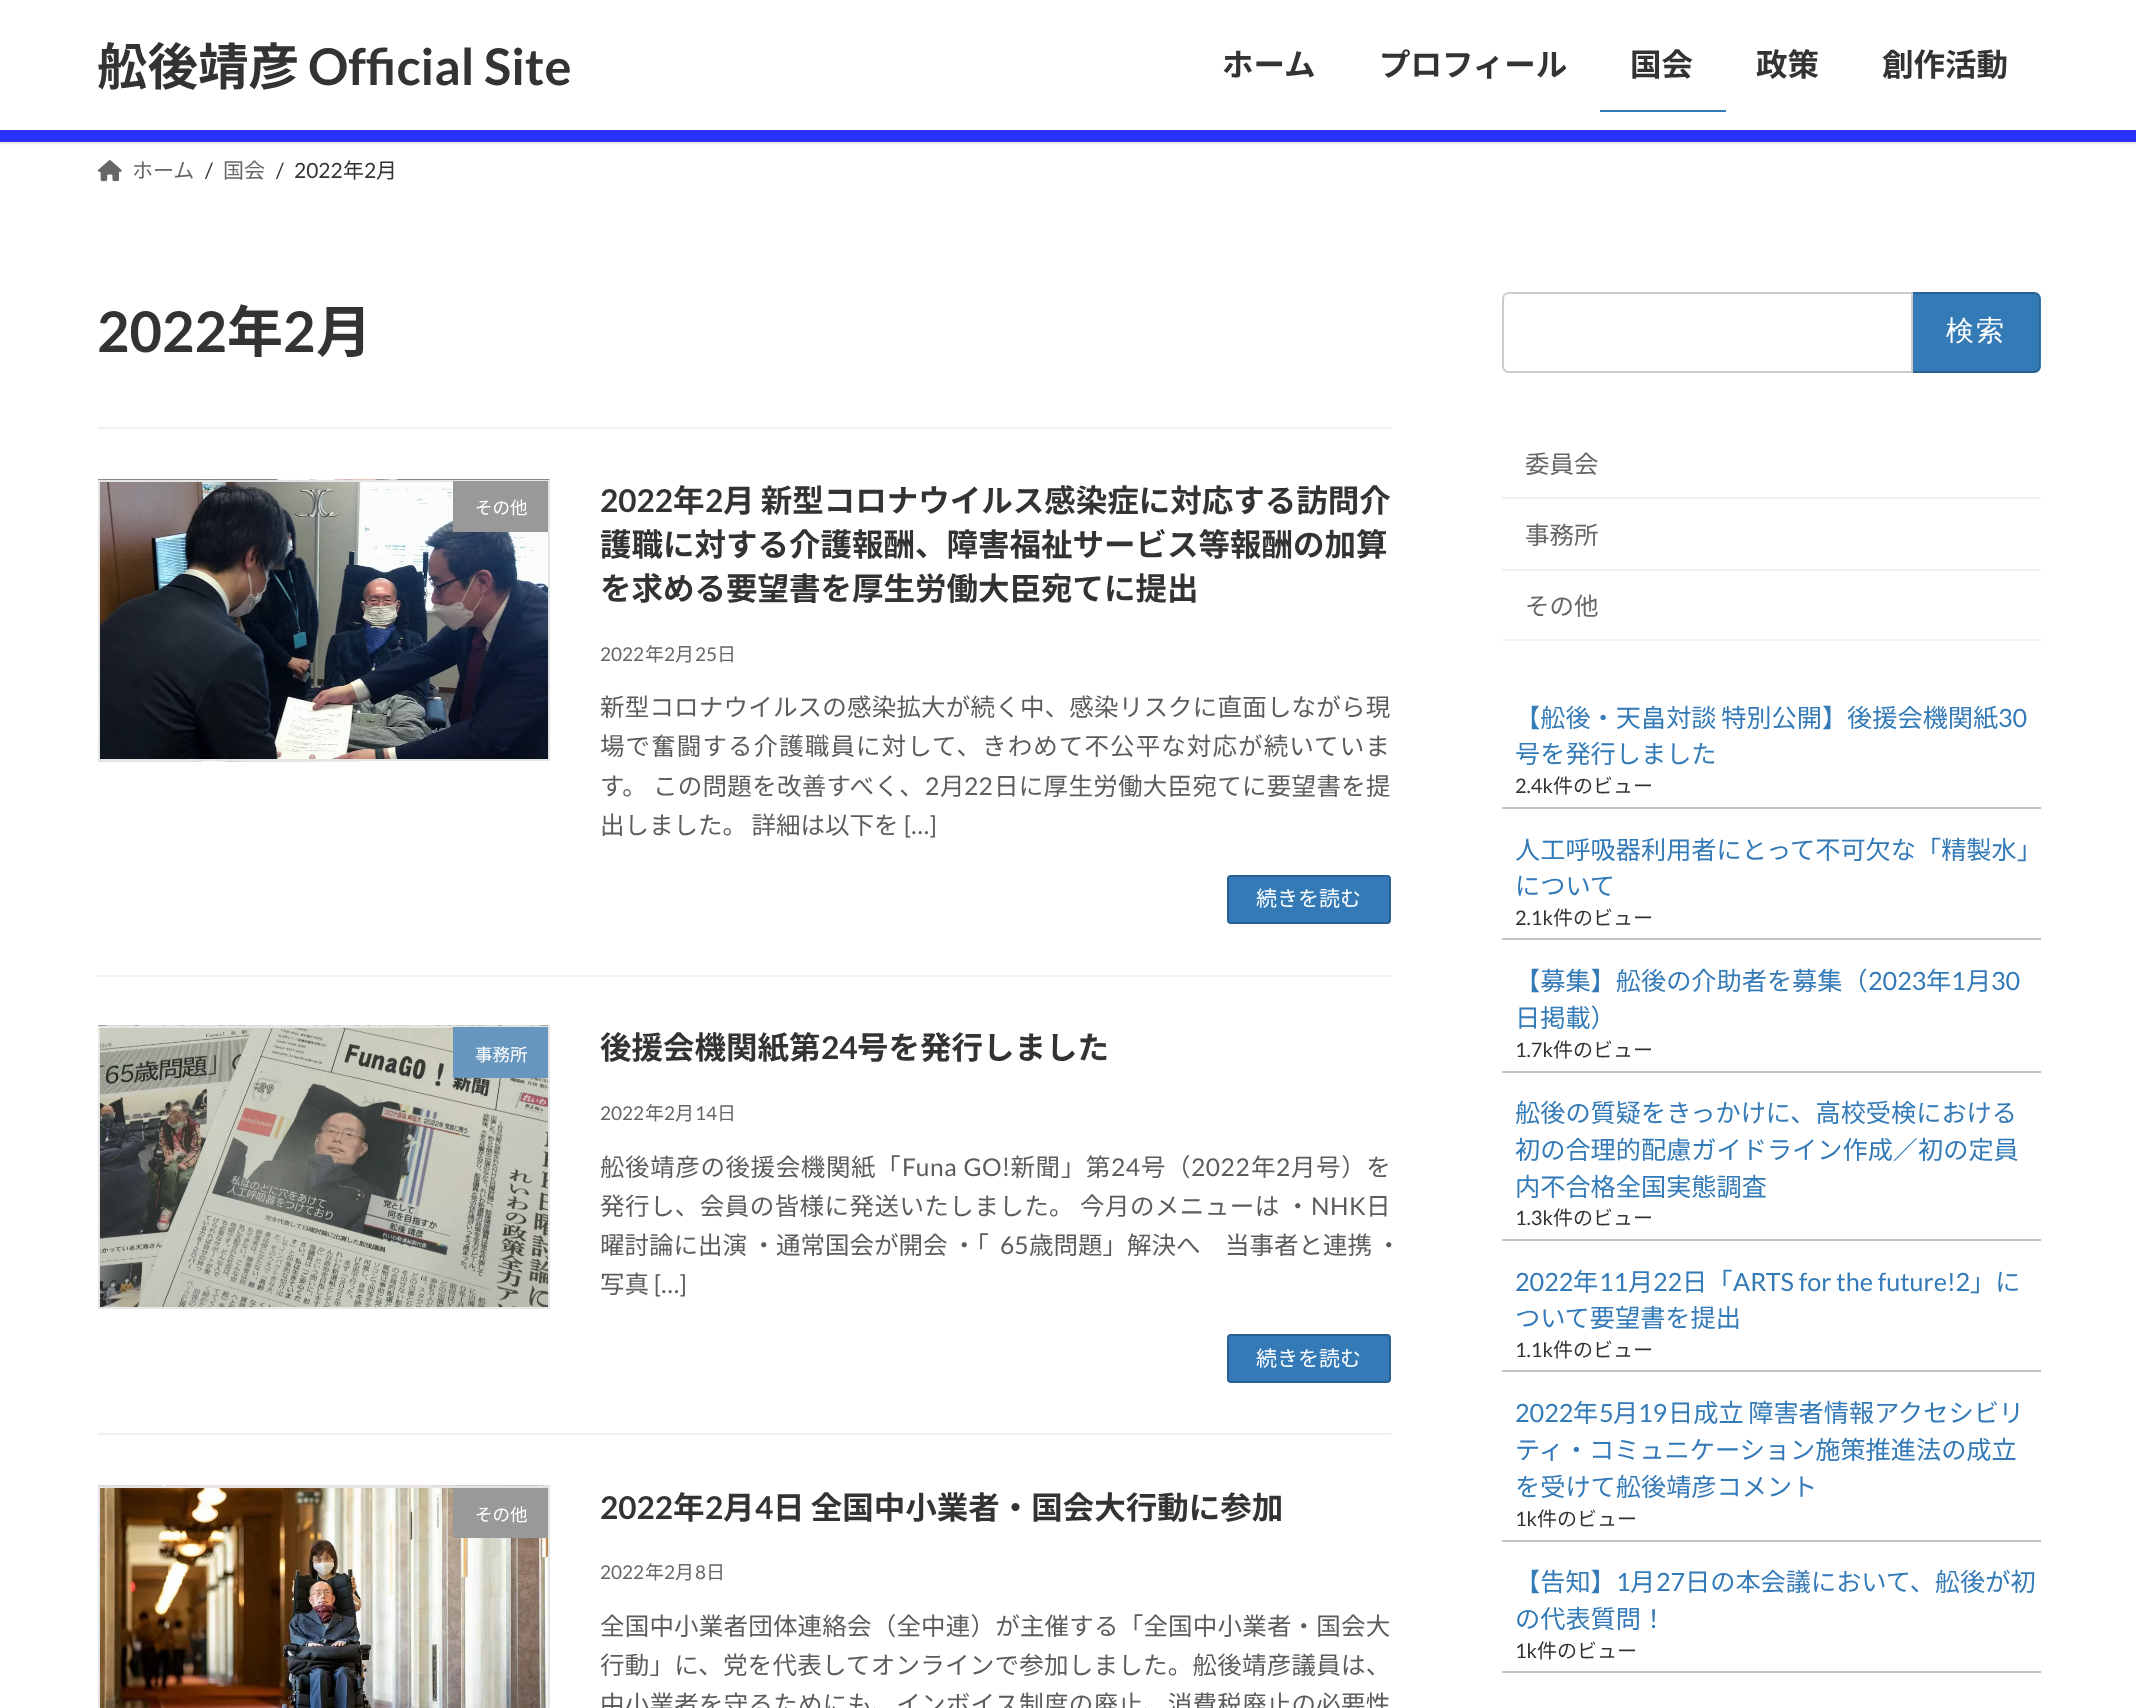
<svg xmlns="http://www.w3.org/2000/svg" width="2136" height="1708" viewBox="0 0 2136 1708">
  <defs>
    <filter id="blur1" x="-50%" y="-200%" width="200%" height="500%"><feGaussianBlur stdDeviation="2.5"/></filter>
  </defs>
  <rect width="100%" height="100%" fill="#ffffff"/>
  <rect x="0" y="142" width="2136" height="2" fill="#f0f0f0"/>
  <rect x="0" y="2" width="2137" height="142" fill="#000000" fill-opacity="0.05" filter="url(#blur1)"/>
  <rect x="0" y="0" width="2136" height="130" fill="#ffffff"/>
  <rect x="0" y="130" width="2136" height="12" fill="#2931ff"/>
  <text x="97" y="85" font-family="Noto Sans JP" font-size="50.5" font-weight="bold" fill="#333333">舩後靖彦</text>
  <text x="308" y="85" font-family="Lato" font-size="50.5" font-weight="bold" fill="#333333">Official Site</text>
  <text x="1222" y="76" font-family="Noto Sans JP" font-size="31.5" font-weight="bold" fill="#333333">ホーム</text>
  <text x="1379" y="76" font-family="Noto Sans JP" font-size="31.5" font-weight="bold" fill="#333333">プロフィール</text>
  <text x="1630" y="76" font-family="Noto Sans JP" font-size="31.5" font-weight="bold" fill="#333333">国会</text>
  <rect x="1600" y="110" width="126" height="2" fill="#337ab7"/>
  <text x="1756" y="76" font-family="Noto Sans JP" font-size="31.5" font-weight="bold" fill="#333333">政策</text>
  <text x="1882" y="76" font-family="Noto Sans JP" font-size="31.5" font-weight="bold" fill="#333333">創作活動</text>
  <image x="98" y="160" width="24" height="22" href="img1.png"/>
  <text x="132" y="178" font-family="Noto Sans JP" font-size="21" fill="#666666">ホーム</text>
  <text x="205" y="178" font-family="Lato" font-size="21" fill="#333333">/</text>
  <text x="223" y="178" font-family="Noto Sans JP" font-size="21" fill="#666666">国会</text>
  <text x="276" y="178" font-family="Lato" font-size="21" fill="#333333">/</text>
  <text x="294" y="178" font-family="Lato" font-size="21" fill="#333333">2022</text>
  <text x="343" y="178" font-family="Noto Sans JP" font-size="21" fill="#333333">年</text>
  <text x="364" y="178" font-family="Lato" font-size="21" fill="#333333">2</text>
  <text x="376" y="178" font-family="Noto Sans JP" font-size="21" fill="#333333">月</text>
  <text x="97" y="352" font-family="Lato" font-size="56" font-weight="bold" fill="#333333">2022</text>
  <text x="227" y="352" font-family="Noto Sans JP" font-size="56" font-weight="bold" fill="#333333">年</text>
  <text x="283" y="352" font-family="Lato" font-size="56" font-weight="bold" fill="#333333">2</text>
  <text x="316" y="352" font-family="Noto Sans JP" font-size="56" font-weight="bold" fill="#333333">月</text>
  <rect x="98" y="427" width="1293" height="2" fill="#f0f0f0"/>
  <rect x="98" y="975" width="1293" height="2" fill="#f0f0f0"/>
  <image x="98" y="479" width="452" height="283" href="img2.png"/>
  <rect x="99" y="481" width="450" height="279" fill="none" stroke="#e5e5e5" stroke-width="2"/>
  <rect x="453" y="481" width="95" height="51" fill="#999999"/>
  <text x="475" y="514" font-family="Noto Sans JP" font-size="17.5" fill="#ffffff">その他</text>
  <text x="600" y="512" font-family="Lato" font-size="31.5" font-weight="bold" fill="#333333">2022</text>
  <text x="673" y="512" font-family="Noto Sans JP" font-size="31.5" font-weight="bold" fill="#333333">年</text>
  <text x="705" y="512" font-family="Lato" font-size="31.5" font-weight="bold" fill="#333333">2</text>
  <text x="723" y="512" word-spacing="-1" font-family="Noto Sans JP" font-size="31.5" font-weight="bold" fill="#333333">月 新型コロナウイルス感染症に対応する訪問介</text>
  <text x="600" y="556" font-family="Noto Sans JP" font-size="31.5" font-weight="bold" fill="#333333">護職に対する介護報酬、障害福祉サービス等報酬の加算</text>
  <text x="600" y="600" font-family="Noto Sans JP" font-size="31.5" font-weight="bold" fill="#333333">を求める要望書を厚生労働大臣宛てに提出</text>
  <text x="600" y="661" font-family="Lato" font-size="19" fill="#666666">2022</text>
  <text x="645" y="661" font-family="Noto Sans JP" font-size="19" fill="#666666">年</text>
  <text x="664" y="661" font-family="Lato" font-size="19" fill="#666666">2</text>
  <text x="675" y="661" font-family="Noto Sans JP" font-size="19" fill="#666666">月</text>
  <text x="695" y="661" font-family="Lato" font-size="19" fill="#666666">25</text>
  <text x="717" y="661" font-family="Noto Sans JP" font-size="19" fill="#666666">日</text>
  <text x="600" y="716" font-family="Noto Sans JP" font-size="24.5" letter-spacing="0.2" fill="#5c5c5c">新型コロナウイルスの感染拡大が続く中、感染リスクに直面しながら現</text>
  <text x="600" y="755" font-family="Noto Sans JP" font-size="24.5" letter-spacing="1.1" fill="#5c5c5c">場で奮闘する介護職員に対して、きわめて不公平な対応が続いていま</text>
  <text x="600" y="795" font-family="Noto Sans JP" font-size="24.5" letter-spacing="0.3" fill="#5c5c5c">す。 この問題を改善すべく、</text>
  <text x="925" y="795" font-family="Lato" font-size="24.5" letter-spacing="0.3" fill="#5c5c5c">2</text>
  <text x="940" y="795" font-family="Noto Sans JP" font-size="24.5" letter-spacing="0.3" fill="#5c5c5c">月</text>
  <text x="964" y="795" font-family="Lato" font-size="24.5" letter-spacing="0.3" fill="#5c5c5c">22</text>
  <text x="994" y="795" font-family="Noto Sans JP" font-size="24.5" letter-spacing="0.3" fill="#5c5c5c">日に厚生労働大臣宛てに要望書を提</text>
  <text x="600" y="834" word-spacing="-1" font-family="Noto Sans JP" font-size="24.5" fill="#5c5c5c">出しました。 詳細は以下を</text>
  <text x="904" y="834" font-family="Lato" font-size="24.5" fill="#5c5c5c">[…]</text>
  <rect x="1228" y="876" width="162" height="47" rx="3" fill="#337ab7" stroke="#296292" stroke-width="2"/>
  <text x="1256" y="906" font-family="Noto Sans JP" font-size="21" fill="#ffffff">続きを読む</text>
  <rect x="98" y="1433" width="1293" height="2" fill="#f0f0f0"/>
  <image x="98" y="1025" width="452" height="282" href="img3.png"/>
  <rect x="99" y="1027" width="450" height="281" fill="none" stroke="#e5e5e5" stroke-width="2"/>
  <rect x="453" y="1027" width="95" height="51" fill="#6796bf"/>
  <text x="475" y="1061" font-family="Noto Sans JP" font-size="17.5" fill="#ffffff">事務所</text>
  <text x="600" y="1059" font-family="Noto Sans JP" font-size="31.5" font-weight="bold" fill="#333333">後援会機関紙第</text>
  <text x="821" y="1059" font-family="Lato" font-size="31.5" font-weight="bold" fill="#333333">24</text>
  <text x="857" y="1059" font-family="Noto Sans JP" font-size="31.5" font-weight="bold" fill="#333333">号を発行しました</text>
  <text x="600" y="1120" font-family="Lato" font-size="19" fill="#666666">2022</text>
  <text x="645" y="1120" font-family="Noto Sans JP" font-size="19" fill="#666666">年</text>
  <text x="664" y="1120" font-family="Lato" font-size="19" fill="#666666">2</text>
  <text x="675" y="1120" font-family="Noto Sans JP" font-size="19" fill="#666666">月</text>
  <text x="695" y="1120" font-family="Lato" font-size="19" fill="#666666">14</text>
  <text x="717" y="1120" font-family="Noto Sans JP" font-size="19" fill="#666666">日</text>
  <text x="600" y="1176" font-family="Noto Sans JP" font-size="24.5" letter-spacing="0.6" fill="#5c5c5c">舩後靖彦の後援会機関紙「</text>
  <text x="902" y="1176" word-spacing="1" font-family="Lato" font-size="24.5" letter-spacing="0.6" fill="#5c5c5c">Funa GO</text>
  <text x="1002" y="1176" font-family="Noto Sans JP" font-size="24.5" letter-spacing="0.6" fill="#5c5c5c">!新聞」第</text>
  <text x="1111" y="1176" font-family="Lato" font-size="24.5" letter-spacing="0.6" fill="#5c5c5c">24</text>
  <text x="1141" y="1176" font-family="Noto Sans JP" font-size="24.5" letter-spacing="0.6" fill="#5c5c5c">号（</text>
  <text x="1191" y="1176" font-family="Lato" font-size="24.5" letter-spacing="0.6" fill="#5c5c5c">2022</text>
  <text x="1251" y="1176" font-family="Noto Sans JP" font-size="24.5" letter-spacing="0.6" fill="#5c5c5c">年</text>
  <text x="1276" y="1176" font-family="Lato" font-size="24.5" letter-spacing="0.6" fill="#5c5c5c">2</text>
  <text x="1291" y="1176" font-family="Noto Sans JP" font-size="24.5" letter-spacing="0.6" fill="#5c5c5c">月号）を</text>
  <text x="600" y="1215" font-family="Noto Sans JP" font-size="24.5" letter-spacing="0.45" fill="#5c5c5c">発行し、会員の皆様に発送いたしました。 今月のメニューは ・</text>
  <text x="1311" y="1215" font-family="Lato" font-size="24.5" letter-spacing="0.45" fill="#5c5c5c">NHK</text>
  <text x="1366" y="1215" font-family="Noto Sans JP" font-size="24.5" letter-spacing="0.45" fill="#5c5c5c">日</text>
  <text x="600" y="1254" word-spacing="-1" font-family="Noto Sans JP" font-size="24.5" fill="#5c5c5c">曜討論に出演 ・通常国会が開会 ・「</text>
  <text x="1000" y="1254" font-family="Lato" font-size="24.5" fill="#5c5c5c">65</text>
  <text x="1029" y="1254" word-spacing="-1" font-family="Noto Sans JP" font-size="24.5" fill="#5c5c5c">歳問題」解決へ　当事者と連携 ・</text>
  <text x="600" y="1293" font-family="Noto Sans JP" font-size="24.5" fill="#5c5c5c">写真</text>
  <text x="654" y="1293" font-family="Lato" font-size="24.5" fill="#5c5c5c">[…]</text>
  <rect x="1228" y="1335" width="162" height="47" rx="3" fill="#337ab7" stroke="#296292" stroke-width="2"/>
  <text x="1256" y="1366" font-family="Noto Sans JP" font-size="21" fill="#ffffff">続きを読む</text>
  <image x="98" y="1485" width="452" height="223" href="img4.png"/>
  <rect x="99" y="1487" width="450" height="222" fill="none" stroke="#e5e5e5" stroke-width="2"/>
  <rect x="453" y="1488" width="95" height="50" fill="#999999"/>
  <text x="475" y="1521" font-family="Noto Sans JP" font-size="17.5" fill="#ffffff">その他</text>
  <text x="600" y="1519" font-family="Lato" font-size="31.5" font-weight="bold" fill="#333333">2022</text>
  <text x="673" y="1519" font-family="Noto Sans JP" font-size="31.5" font-weight="bold" fill="#333333">年</text>
  <text x="705" y="1519" font-family="Lato" font-size="31.5" font-weight="bold" fill="#333333">2</text>
  <text x="723" y="1519" font-family="Noto Sans JP" font-size="31.5" font-weight="bold" fill="#333333">月</text>
  <text x="755" y="1519" font-family="Lato" font-size="31.5" font-weight="bold" fill="#333333">4</text>
  <text x="773" y="1519" word-spacing="-1" font-family="Noto Sans JP" font-size="31.5" font-weight="bold" fill="#333333">日 全国中小業者・国会大行動に参加</text>
  <text x="600" y="1579" font-family="Lato" font-size="19" fill="#666666">2022</text>
  <text x="645" y="1579" font-family="Noto Sans JP" font-size="19" fill="#666666">年</text>
  <text x="664" y="1579" font-family="Lato" font-size="19" fill="#666666">2</text>
  <text x="675" y="1579" font-family="Noto Sans JP" font-size="19" fill="#666666">月</text>
  <text x="695" y="1579" font-family="Lato" font-size="19" fill="#666666">8</text>
  <text x="706" y="1579" font-family="Noto Sans JP" font-size="19" fill="#666666">日</text>
  <text x="600" y="1635" font-family="Noto Sans JP" font-size="24.5" letter-spacing="0.2" fill="#5c5c5c">全国中小業者団体連絡会（全中連）が主催する「全国中小業者・国会大</text>
  <text x="600" y="1674" font-family="Noto Sans JP" font-size="24.5" letter-spacing="0.25" fill="#5c5c5c">行動」に、党を代表してオンラインで参加しました。舩後靖彦議員は、</text>
  <text x="600" y="1713" font-family="Noto Sans JP" font-size="24.5" letter-spacing="0.25" fill="#5c5c5c">中小業者を守るためにも、インボイス制度の廃止、消費税廃止の必要性</text>
  <path d="M1509 293H1912V372H1509C1505.5 372 1503 369.5 1503 366V299C1503 295.5 1505.5 293 1509 293Z" fill="none" stroke="#cccccc" stroke-width="2"/>
  <path d="M1913 292H2034C2038 292 2041 295 2041 299V366C2041 370 2038 373 2034 373H1913Z" fill="#337ab7"/>
  <path d="M1913 292H2034C2037 292 2040 295 2040 299V366C2040 370 2037 373 2034 373H1913ZM1913 294H2034C2036 294 2039 296 2039 299V366C2039 369 2036 371 2034 371H1913Z" fill="#000000" fill-opacity="0.2" fill-rule="evenodd"/>
  <text x="1946" y="340" font-family="WenQuanYi Zen Hei" font-size="28" font-weight="500" letter-spacing="2" fill="#ffffff">検索</text>
  <rect x="1502" y="497" width="539" height="2" fill="#f0f0f0"/>
  <text x="1525" y="473" font-family="Noto Sans JP" font-size="24.5" fill="#666666">委員会</text>
  <rect x="1502" y="569" width="539" height="2" fill="#f0f0f0"/>
  <text x="1525" y="544" font-family="Noto Sans JP" font-size="24.5" fill="#666666">事務所</text>
  <rect x="1502" y="639" width="539" height="2" fill="#f0f0f0"/>
  <text x="1525" y="615" font-family="Noto Sans JP" font-size="24.5" fill="#666666">その他</text>
  <rect x="1502" y="807" width="539" height="2" fill="#c3c3c3"/>
  <text x="1515" y="727" word-spacing="-1" font-family="Noto Sans JP" font-size="25.2" fill="#337ab7">【舩後・天畠対談 特別公開】後援会機関紙</text>
  <text x="1998" y="727" font-family="Lato" font-size="25.2" fill="#337ab7">30</text>
  <text x="1515" y="763" font-family="Noto Sans JP" font-size="25.2" fill="#337ab7">号を発行しました</text>
  <text x="1515" y="793" font-family="Lato" font-size="20" fill="#333333">2.4k</text>
  <text x="1553" y="793" font-family="Noto Sans JP" font-size="20" fill="#333333">件のビュー</text>
  <rect x="1502" y="938" width="539" height="2" fill="#c3c3c3"/>
  <text x="1515" y="859" font-family="Noto Sans JP" font-size="25.2" fill="#337ab7">人工呼吸器利用者にとって不可欠な「精製水」</text>
  <text x="1515" y="895" font-family="Noto Sans JP" font-size="25.2" fill="#337ab7">について</text>
  <text x="1515" y="925" font-family="Lato" font-size="20" fill="#333333">2.1k</text>
  <text x="1553" y="925" font-family="Noto Sans JP" font-size="20" fill="#333333">件のビュー</text>
  <rect x="1502" y="1071" width="539" height="2" fill="#c3c3c3"/>
  <text x="1515" y="990" font-family="Noto Sans JP" font-size="25.2" fill="#337ab7">【募集】舩後の介助者を募集（</text>
  <text x="1868" y="990" font-family="Lato" font-size="25.2" fill="#337ab7">2023</text>
  <text x="1926" y="990" font-family="Noto Sans JP" font-size="25.2" fill="#337ab7">年</text>
  <text x="1951" y="990" font-family="Lato" font-size="25.2" fill="#337ab7">1</text>
  <text x="1966" y="990" font-family="Noto Sans JP" font-size="25.2" fill="#337ab7">月</text>
  <text x="1991" y="990" font-family="Lato" font-size="25.2" fill="#337ab7">30</text>
  <text x="1515" y="1027" font-family="Noto Sans JP" font-size="25.2" fill="#337ab7">日掲載）</text>
  <text x="1515" y="1057" font-family="Lato" font-size="20" fill="#333333">1.7k</text>
  <text x="1553" y="1057" font-family="Noto Sans JP" font-size="20" fill="#333333">件のビュー</text>
  <rect x="1502" y="1239" width="539" height="2" fill="#c3c3c3"/>
  <text x="1515" y="1122" font-family="Noto Sans JP" font-size="25.2" fill="#337ab7">舩後の質疑をきっかけに、高校受検における</text>
  <text x="1515" y="1159" font-family="Noto Sans JP" font-size="25.2" fill="#337ab7">初の合理的配慮ガイドライン作成／初の定員</text>
  <text x="1515" y="1196" font-family="Noto Sans JP" font-size="25.2" fill="#337ab7">内不合格全国実態調査</text>
  <text x="1515" y="1225" font-family="Lato" font-size="20" fill="#333333">1.3k</text>
  <text x="1553" y="1225" font-family="Noto Sans JP" font-size="20" fill="#333333">件のビュー</text>
  <rect x="1502" y="1370" width="539" height="2" fill="#c3c3c3"/>
  <text x="1515" y="1291" font-family="Lato" font-size="25.2" fill="#337ab7">2022</text>
  <text x="1573" y="1291" font-family="Noto Sans JP" font-size="25.2" fill="#337ab7">年</text>
  <text x="1599" y="1291" font-family="Lato" font-size="25.2" fill="#337ab7">11</text>
  <text x="1628" y="1291" font-family="Noto Sans JP" font-size="25.2" fill="#337ab7">月</text>
  <text x="1653" y="1291" font-family="Lato" font-size="25.2" fill="#337ab7">22</text>
  <text x="1682" y="1291" font-family="Noto Sans JP" font-size="25.2" fill="#337ab7">日「</text>
  <text x="1733" y="1291" font-family="Lato" font-size="25.2" fill="#337ab7">ARTS for the future!2</text>
  <text x="1970" y="1291" font-family="Noto Sans JP" font-size="25.2" fill="#337ab7">」に</text>
  <text x="1515" y="1327" font-family="Noto Sans JP" font-size="25.2" fill="#337ab7">ついて要望書を提出</text>
  <text x="1515" y="1357" font-family="Lato" font-size="20" fill="#333333">1.1k</text>
  <text x="1553" y="1357" font-family="Noto Sans JP" font-size="20" fill="#333333">件のビュー</text>
  <rect x="1502" y="1540" width="539" height="2" fill="#c3c3c3"/>
  <text x="1515" y="1422" font-family="Lato" font-size="25.2" fill="#337ab7">2022</text>
  <text x="1573" y="1422" font-family="Noto Sans JP" font-size="25.2" fill="#337ab7">年</text>
  <text x="1599" y="1422" font-family="Lato" font-size="25.2" fill="#337ab7">5</text>
  <text x="1613" y="1422" font-family="Noto Sans JP" font-size="25.2" fill="#337ab7">月</text>
  <text x="1638" y="1422" font-family="Lato" font-size="25.2" fill="#337ab7">19</text>
  <text x="1668" y="1422" word-spacing="-1" font-family="Noto Sans JP" font-size="25.2" fill="#337ab7">日成立 障害者情報アクセシビリ</text>
  <text x="1515" y="1459" font-family="Noto Sans JP" font-size="25.2" fill="#337ab7">ティ・コミュニケーション施策推進法の成立</text>
  <text x="1515" y="1496" font-family="Noto Sans JP" font-size="25.2" fill="#337ab7">を受けて舩後靖彦コメント</text>
  <text x="1515" y="1526" font-family="Lato" font-size="20" fill="#333333">1k</text>
  <text x="1537" y="1526" font-family="Noto Sans JP" font-size="20" fill="#333333">件のビュー</text>
  <rect x="1502" y="1671" width="539" height="2" fill="#c3c3c3"/>
  <text x="1515" y="1591" font-family="Noto Sans JP" font-size="25.2" fill="#337ab7">【告知】</text>
  <text x="1616" y="1591" font-family="Lato" font-size="25.2" fill="#337ab7">1</text>
  <text x="1630" y="1591" font-family="Noto Sans JP" font-size="25.2" fill="#337ab7">月</text>
  <text x="1656" y="1591" font-family="Lato" font-size="25.2" fill="#337ab7">27</text>
  <text x="1685" y="1591" font-family="Noto Sans JP" font-size="25.2" fill="#337ab7">日の本会議において、舩後が初</text>
  <text x="1515" y="1628" font-family="Noto Sans JP" font-size="25.2" fill="#337ab7">の代表質問！</text>
  <text x="1515" y="1658" font-family="Lato" font-size="20" fill="#333333">1k</text>
  <text x="1537" y="1658" font-family="Noto Sans JP" font-size="20" fill="#333333">件のビュー</text>
</svg>
